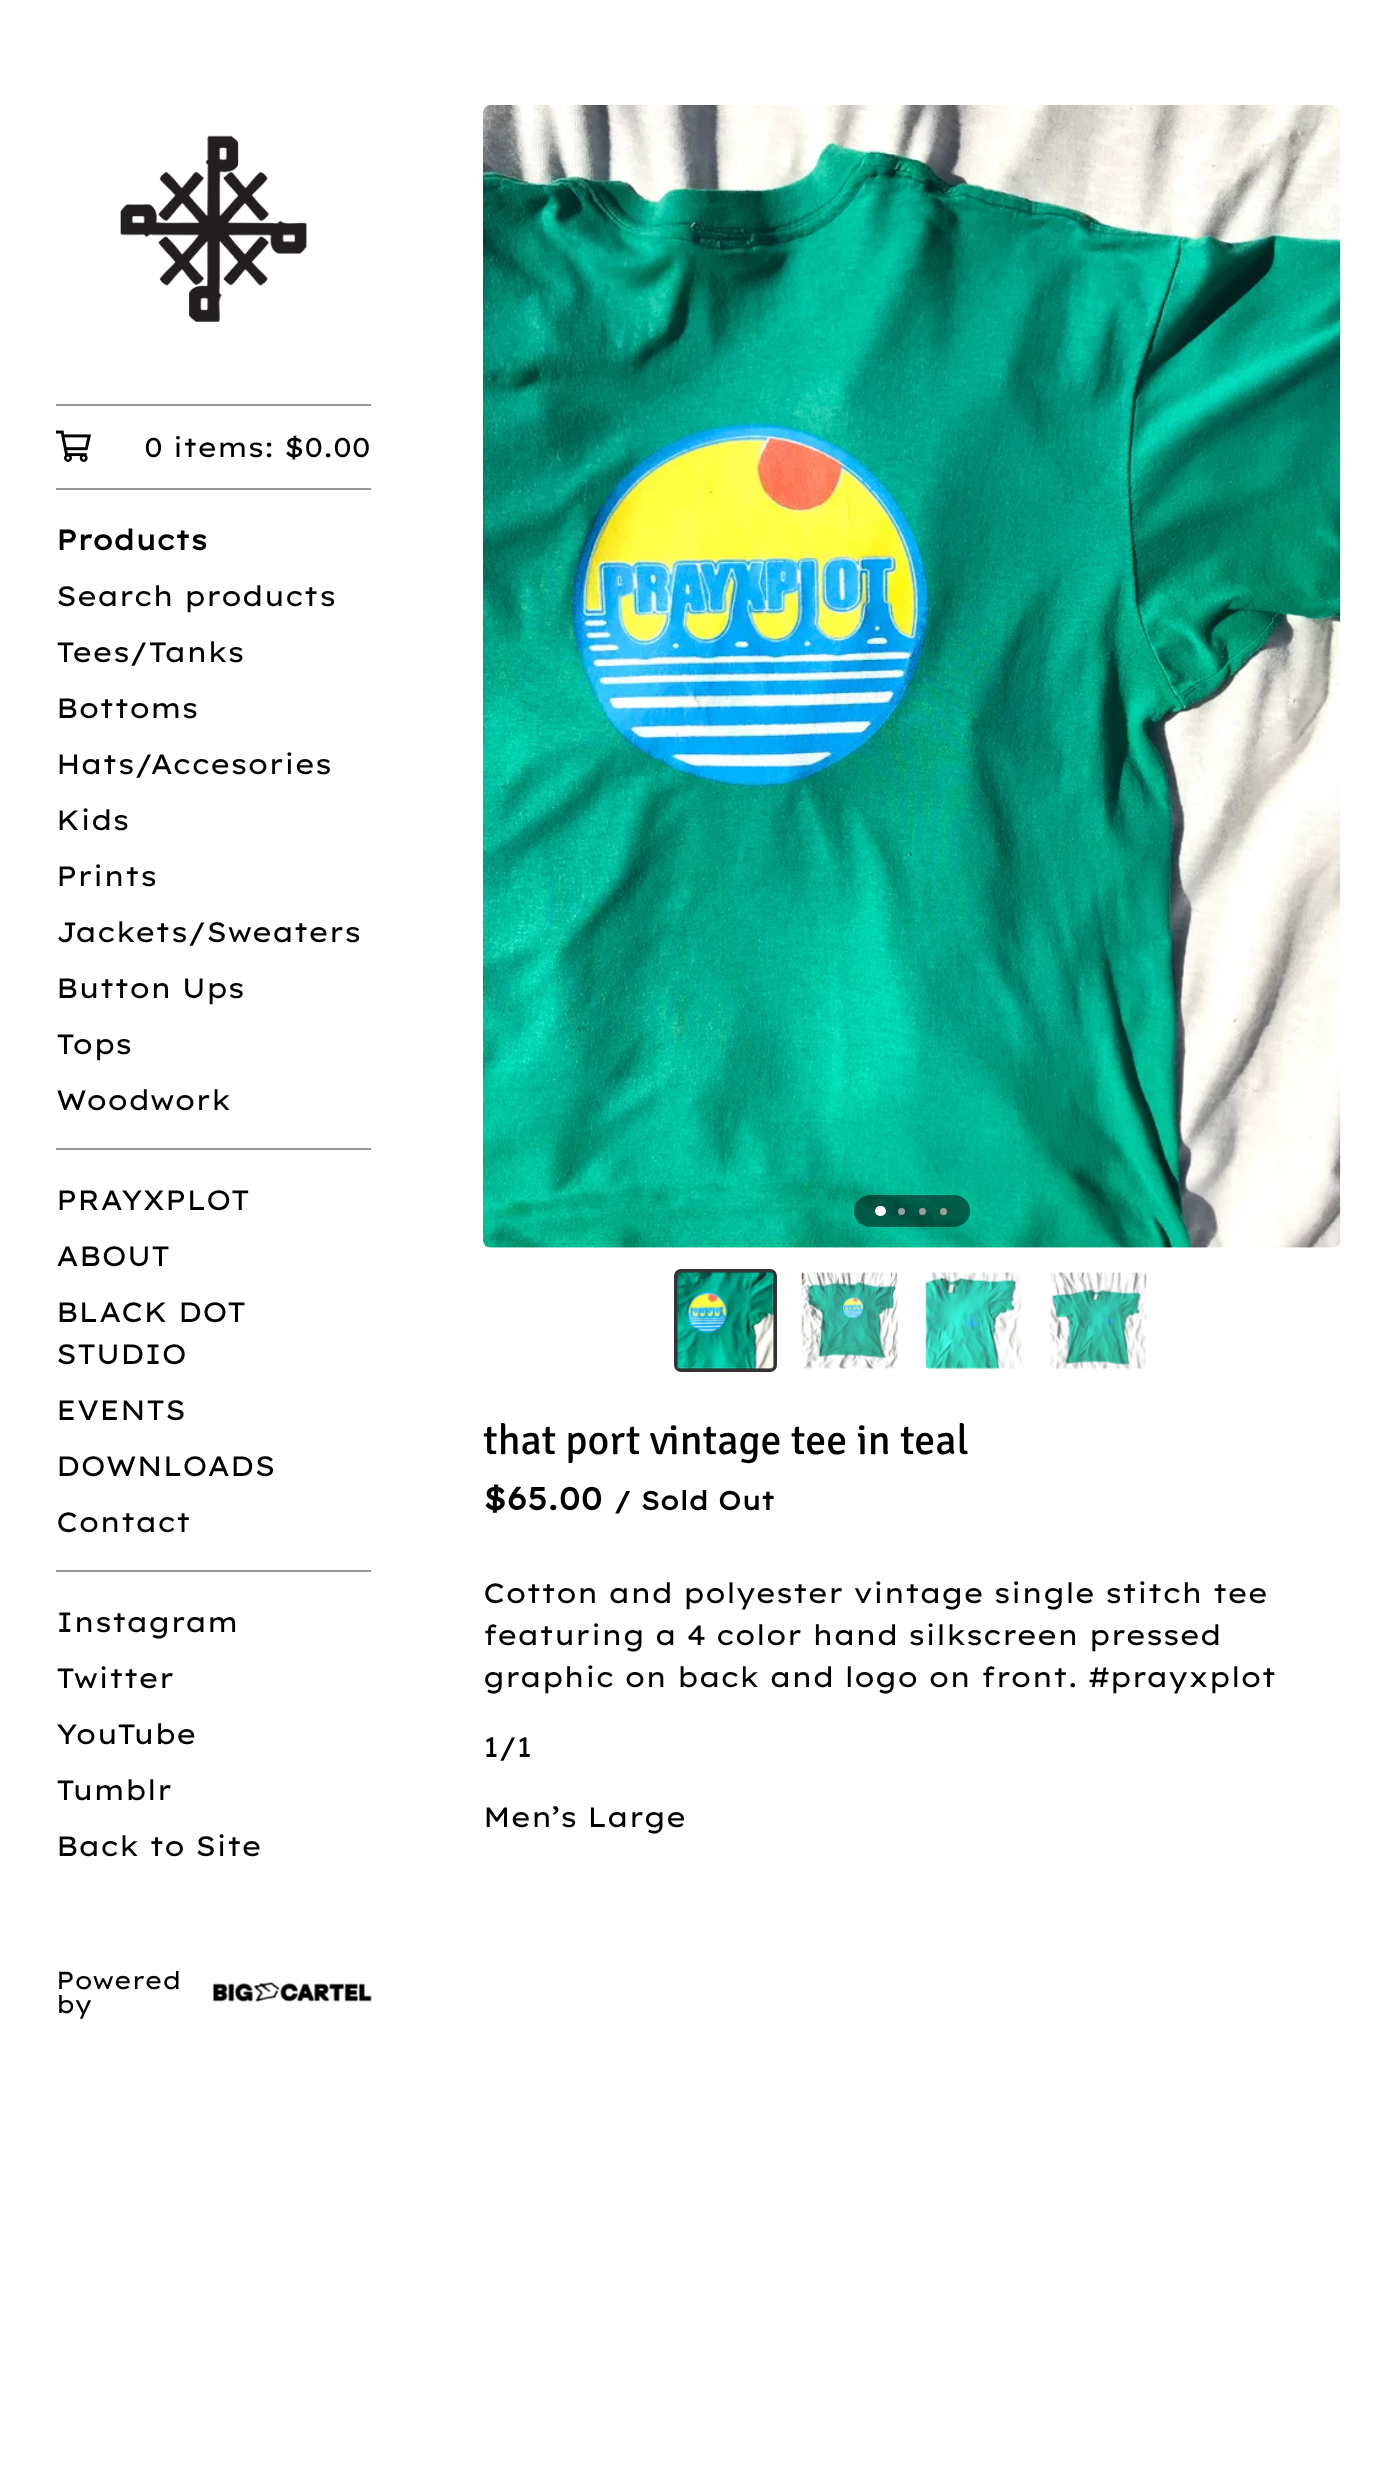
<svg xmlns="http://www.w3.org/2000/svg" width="1395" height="2474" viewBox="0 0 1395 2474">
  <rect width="100%" height="100%" fill="#ffffff"/>
  <image x="120" y="135" width="187" height="187" href="img1.png"/>
  <rect x="56" y="404" width="315" height="2" fill="#999999"/>
  <image x="56" y="430" width="35" height="32" href="img2.png"/>
  <text x="144" y="457" font-family="Lexend Exa" font-size="27.25" fill="#000000">0 items: $0.00</text>
  <rect x="56" y="488" width="315" height="2" fill="#999999"/>
  <text x="56" y="550" font-family="Lexend Exa" font-size="28" font-weight="bold" fill="#000000">Products</text>
  <text x="56" y="606" font-family="Lexend Exa" font-size="28" fill="#000000">Search products</text>
  <text x="56" y="662" font-family="Lexend Exa" font-size="28" fill="#000000">Tees/Tanks</text>
  <text x="56" y="718" font-family="Lexend Exa" font-size="28" fill="#000000">Bottoms</text>
  <text x="56" y="774" font-family="Lexend Exa" font-size="28" fill="#000000">Hats/Accesories</text>
  <text x="56" y="830" font-family="Lexend Exa" font-size="28" fill="#000000">Kids</text>
  <text x="56" y="886" font-family="Lexend Exa" font-size="28" fill="#000000">Prints</text>
  <text x="56" y="942" font-family="Lexend Exa" font-size="28" fill="#000000">Jackets/Sweaters</text>
  <text x="56" y="998" font-family="Lexend Exa" font-size="28" fill="#000000">Button Ups</text>
  <text x="56" y="1054" font-family="Lexend Exa" font-size="28" fill="#000000">Tops</text>
  <text x="56" y="1110" font-family="Lexend Exa" font-size="28" fill="#000000">Woodwork</text>
  <rect x="56" y="1148" width="315" height="2" fill="#999999"/>
  <text x="56" y="1210" font-family="Lexend Exa" font-size="28" fill="#000000">PRAYXPLOT</text>
  <text x="56" y="1266" font-family="Lexend Exa" font-size="28" fill="#000000">ABOUT</text>
  <text x="56" y="1322" font-family="Lexend Exa" font-size="28" fill="#000000">BLACK DOT</text>
  <text x="56" y="1364" font-family="Lexend Exa" font-size="28" fill="#000000">STUDIO</text>
  <text x="56" y="1420" font-family="Lexend Exa" font-size="28" fill="#000000">EVENTS</text>
  <text x="56" y="1476" font-family="Lexend Exa" font-size="28" fill="#000000">DOWNLOADS</text>
  <text x="56" y="1532" font-family="Lexend Exa" font-size="28" fill="#000000">Contact</text>
  <rect x="56" y="1570" width="315" height="2" fill="#999999"/>
  <text x="56" y="1632" font-family="Lexend Exa" font-size="28" fill="#000000">Instagram</text>
  <text x="56" y="1688" font-family="Lexend Exa" font-size="28" fill="#000000">Twitter</text>
  <text x="56" y="1744" font-family="Lexend Exa" font-size="28" fill="#000000">YouTube</text>
  <text x="56" y="1800" font-family="Lexend Exa" font-size="28" fill="#000000">Tumblr</text>
  <text x="56" y="1856" font-family="Lexend Exa" font-size="28" fill="#000000">Back to Site</text>
  <text x="56" y="1989" font-family="Lexend Exa" font-size="24.5" fill="#000000">Powered</text>
  <text x="56" y="2013" font-family="Lexend Exa" font-size="24.5" fill="#000000">by</text>
  <image x="213" y="1982" width="159" height="20" href="img3.png"/>
  <image x="483" y="105" width="858" height="1143" href="img4.png"/>
  <rect x="854" y="1195" width="116" height="32" rx="16" fill="#000000" fill-opacity="0.5"/>
  <rect x="875" y="1206" width="11" height="10" rx="5" fill="#ffffff"/>
  <circle cx="901.5" cy="1211.5" r="3.5" fill="#9d9d9d"/>
  <circle cx="922.5" cy="1211.5" r="3.5" fill="#9d9d9d"/>
  <circle cx="943.5" cy="1211.5" r="3.5" fill="#9d9d9d"/>
  <rect x="676" y="1271" width="99" height="99" rx="5" fill="none" stroke="#333333" stroke-width="4"/>
  <image x="676" y="1271" width="98" height="98" href="img5.png"/>
  <image x="801" y="1271" width="97" height="98" href="img6.png"/>
  <image x="925" y="1271" width="97" height="98" href="img7.png"/>
  <image x="1049" y="1271" width="98" height="98" href="img8.png"/>
  <text x="483" y="1454" font-family="Signika" font-size="42" fill="#000000">that port vintage tee in teal</text>
  <text x="483" y="1510" font-family="Lexend Exa" font-size="31.5" font-weight="bold" fill="#000000">$65.00</text>
  <text x="614" y="1510" font-family="Lexend Exa" font-size="26" font-weight="bold" fill="#000000">/ Sold Out</text>
  <text x="483" y="1603" font-family="Lexend Exa" font-size="28" fill="#000000">Cotton and polyester vintage single stitch tee</text>
  <text x="483" y="1645" font-family="Lexend Exa" font-size="28" fill="#000000">featuring a 4 color hand silkscreen pressed</text>
  <text x="483" y="1687" font-family="Lexend Exa" font-size="28" fill="#000000">graphic on back and logo on front. #prayxplot</text>
  <text x="483" y="1757" font-family="Lexend Exa" font-size="28" fill="#000000">1/1</text>
  <text x="483" y="1827" font-family="Lexend Exa" font-size="28" fill="#000000">Men’s Large</text>
</svg>
